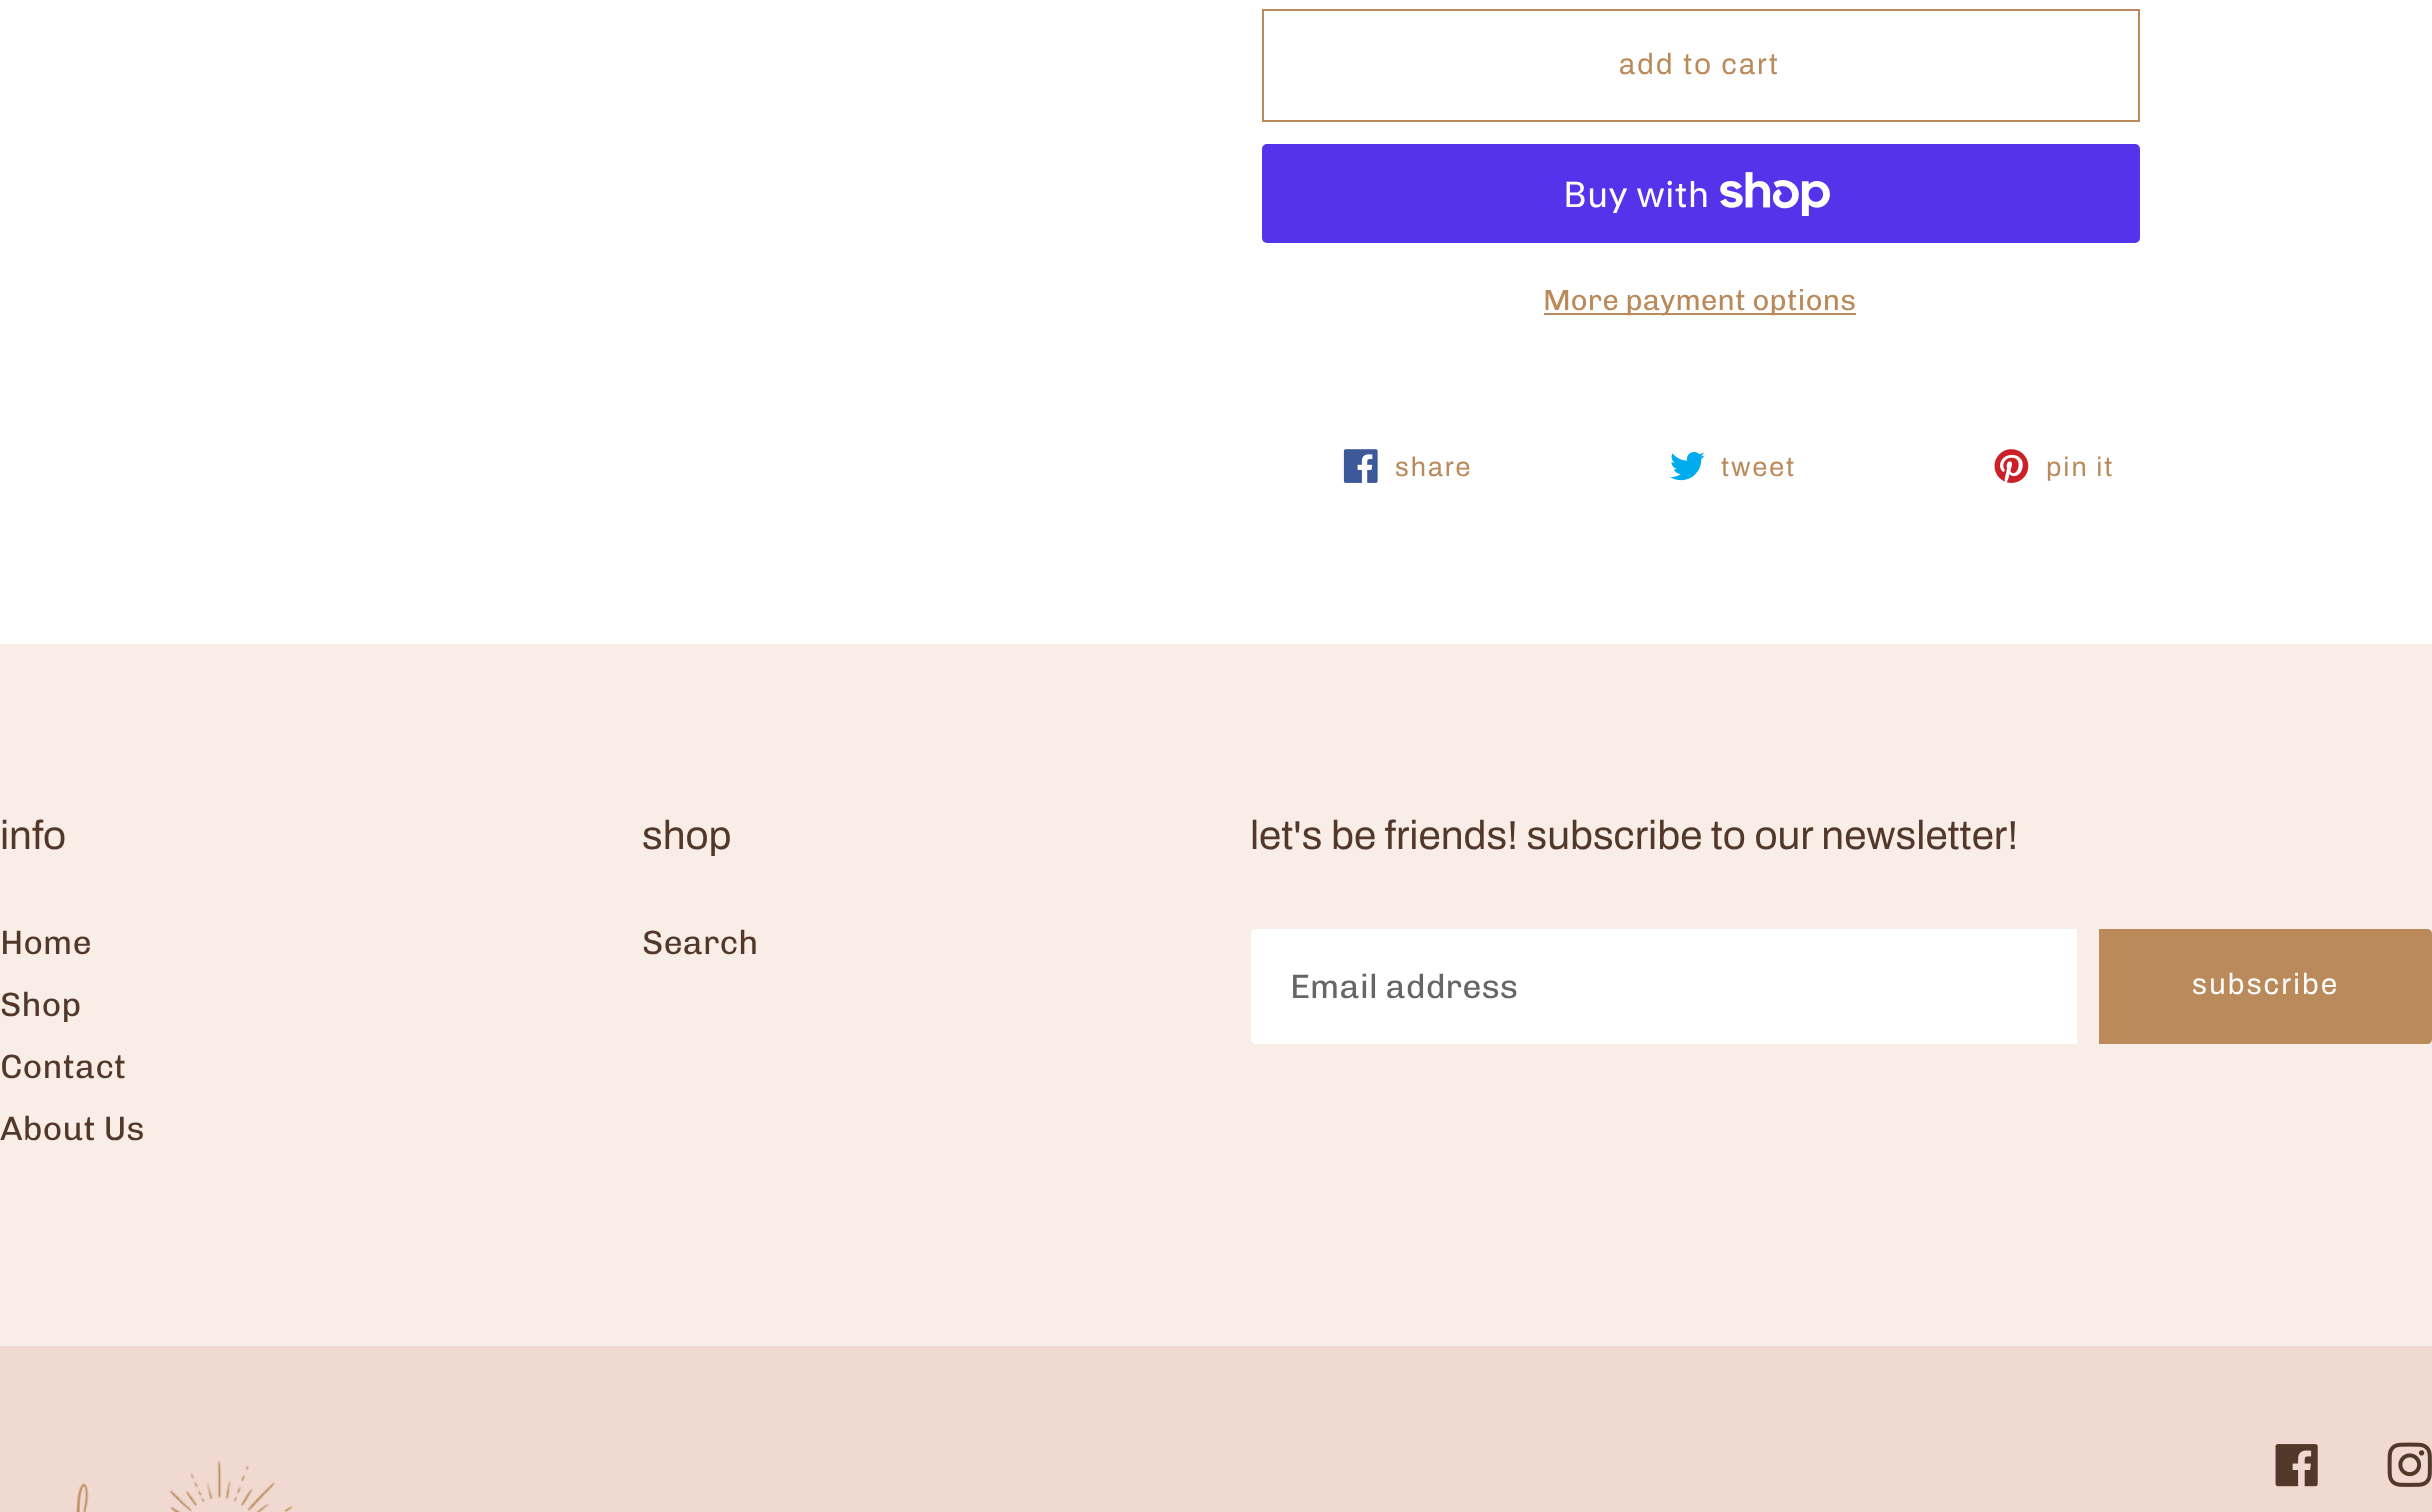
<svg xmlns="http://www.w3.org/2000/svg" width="2432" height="1512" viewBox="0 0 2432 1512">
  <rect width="100%" height="100%" fill="#ffffff"/>
  <rect x="1263" y="10" width="876" height="111" fill="none" stroke="#ba8a5a" stroke-width="2"/>
  <text x="1619" y="74" font-family="Archivo" font-size="29.25" letter-spacing="2.25" fill="#ba8a5a">add to cart</text>
  <rect x="1262" y="144" width="878" height="99" rx="5" fill="#5433eb"/>
  <text x="1563" y="207" font-family="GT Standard" font-size="36" fill="#fdfdfd">Buy with</text>
  <image x="1720" y="172" width="110" height="44" href="img1.png"/>
  <rect x="1544" y="313" width="312" height="2" fill="#ba8a5a"/>
  <text x="1543" y="310" font-family="Chivo" font-size="29.25" fill="#ba8a5a">More payment options</text>
  <image x="1343" y="449" width="35" height="34" href="img2.png"/>
  <text x="1395" y="476" font-family="Archivo" font-size="27" letter-spacing="2" fill="#ba8a5a">share</text>
  <image x="1670" y="452" width="35" height="29" href="img3.png"/>
  <text x="1721" y="476" font-family="Archivo" font-size="27" letter-spacing="2" fill="#ba8a5a">tweet</text>
  <image x="1994" y="449" width="35" height="34" href="img4.png"/>
  <text x="2046" y="476" font-family="Archivo" font-size="27" letter-spacing="2" fill="#ba8a5a">pin it</text>
  <rect x="0" y="644" width="2432" height="702" fill="#f8ede7"/>
  <text x="0" y="849" font-family="Archivo" font-size="40.5" fill="#52382a">info</text>
  <text x="0" y="954" font-family="Chivo" font-size="33.75" fill="#52382a">Home</text>
  <text x="0" y="1016" font-family="Chivo" font-size="33.75" fill="#52382a">Shop</text>
  <text x="0" y="1078" font-family="Chivo" font-size="33.75" fill="#52382a">Contact</text>
  <text x="0" y="1140" font-family="Chivo" font-size="33.75" fill="#52382a">About Us</text>
  <text x="642" y="849" font-family="Archivo" font-size="40.5" fill="#52382a">shop</text>
  <text x="642" y="954" font-family="Chivo" font-size="33.75" fill="#52382a">Search</text>
  <text x="1250" y="849" font-family="Archivo" font-size="40.5" fill="#52382a">let's be friends! subscribe to our newsletter!</text>
  <path d="M1256 929H2077V1044H1256C1253 1044 1251 1042 1251 1039V934C1251 931 1253 929 1256 929Z" fill="#ffffff"/>
  <text x="1290" y="998" font-family="Chivo" font-size="33.75" fill="#666666">Email address</text>
  <path d="M2099 929H2427C2430 929 2432 931 2432 934V1039C2432 1042 2430 1044 2427 1044H2099Z" fill="#ba8a5a"/>
  <text x="2192" y="994" font-family="Archivo" font-size="29.25" letter-spacing="2.25" fill="#fdfdfd">subscribe</text>
  <rect x="0" y="1346" width="2432" height="166" fill="#efd9d1"/>
  <image x="75" y="1460" width="218" height="52" href="img5.png"/>
  <image x="2275" y="1444" width="43" height="43" href="img6.png"/>
  <image x="2387" y="1442" width="45" height="45" href="img7.png"/>
</svg>
